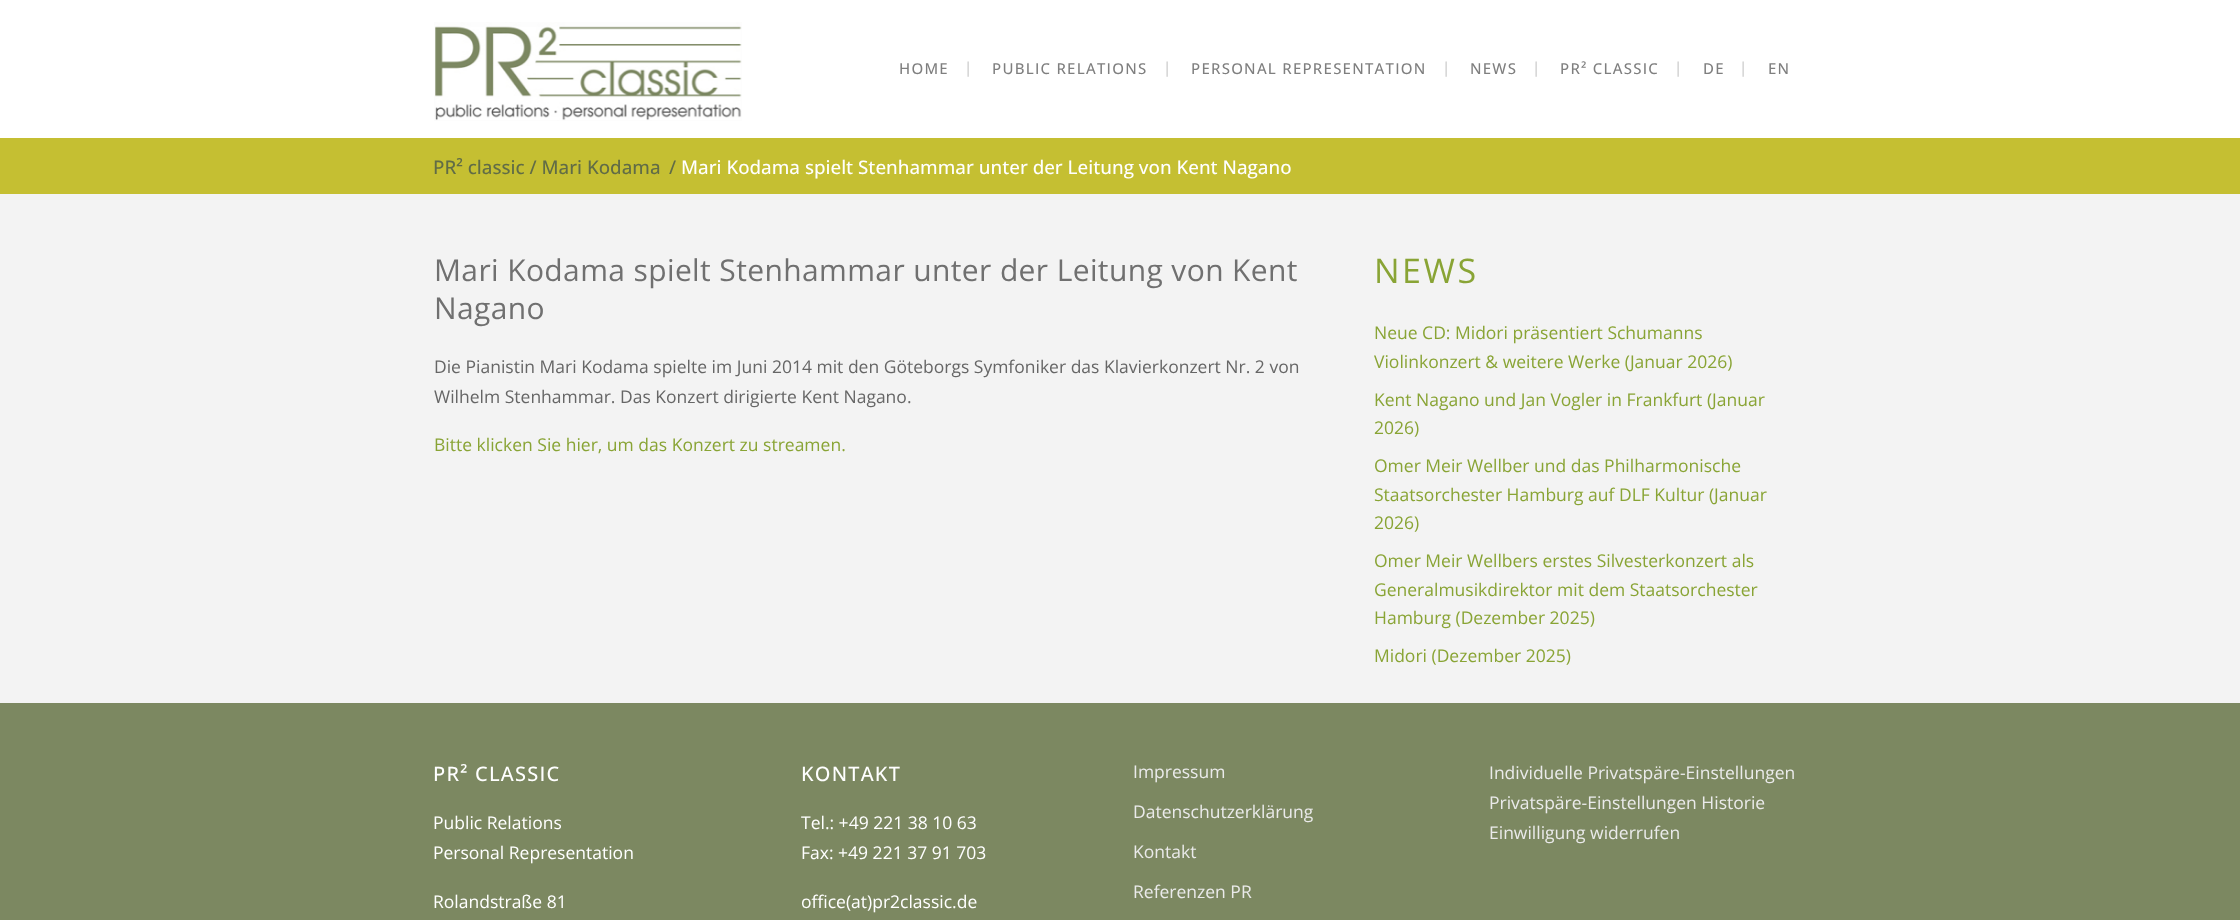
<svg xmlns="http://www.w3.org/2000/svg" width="2240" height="920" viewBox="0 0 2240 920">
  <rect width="100%" height="100%" fill="#f3f3f3"/>
  <rect x="0" y="0" width="2240" height="138" fill="#ffffff"/>
  <image x="434" y="22" width="308" height="99" href="img1.png"/>
  <text x="899" y="74" font-family="Open Sans" font-size="15" font-weight="500" letter-spacing="1.25" fill="#7f7f7f">HOME</text>
  <text x="964" y="73" font-family="Open Sans" font-size="15" fill="#c4c4c4">|</text>
  <text x="992" y="74" font-family="Open Sans" font-size="15" font-weight="500" letter-spacing="1.25" fill="#7f7f7f">PUBLIC RELATIONS</text>
  <text x="1163" y="73" font-family="Open Sans" font-size="15" fill="#c4c4c4">|</text>
  <text x="1191" y="74" font-family="Open Sans" font-size="15" font-weight="500" letter-spacing="1.25" fill="#7f7f7f">PERSONAL REPRESENTATION</text>
  <text x="1442" y="73" font-family="Open Sans" font-size="15" fill="#c4c4c4">|</text>
  <text x="1470" y="74" font-family="Open Sans" font-size="15" font-weight="500" letter-spacing="1.25" fill="#7f7f7f">NEWS</text>
  <text x="1532" y="73" font-family="Open Sans" font-size="15" fill="#c4c4c4">|</text>
  <text x="1560" y="74" font-family="Open Sans" font-size="15" font-weight="500" letter-spacing="1.25" fill="#7f7f7f">PR² CLASSIC</text>
  <text x="1674" y="73" font-family="Open Sans" font-size="15" fill="#c4c4c4">|</text>
  <text x="1703" y="74" font-family="Open Sans" font-size="15" font-weight="500" letter-spacing="1.25" fill="#7f7f7f">DE</text>
  <text x="1739" y="73" font-family="Open Sans" font-size="15" fill="#c4c4c4">|</text>
  <text x="1768" y="74" font-family="Open Sans" font-size="15" font-weight="500" letter-spacing="1.25" fill="#7f7f7f">EN</text>
  <rect x="0" y="138" width="2240" height="56" fill="#c5bf32"/>
  <text x="433" y="174" font-family="Open Sans" font-size="18.75" font-weight="500" fill="#616c46">PR² classic / Mari Kodama</text>
  <text x="669" y="174" font-family="Open Sans" font-size="18.75" font-weight="500" fill="#616c46">/</text>
  <text x="681" y="174" font-family="Open Sans" font-size="18.75" font-weight="500" fill="#ffffff">Mari Kodama spielt Stenhammar unter der Leitung von Kent Nagano</text>
  <text x="434" y="281" font-family="Open Sans" font-size="30" letter-spacing="0.38" fill="#707070">Mari Kodama spielt Stenhammar unter der Leitung von Kent</text>
  <text x="434" y="319" font-family="Open Sans" font-size="30" letter-spacing="0.38" fill="#707070">Nagano</text>
  <text x="434" y="373" font-family="Open Sans" font-size="17.5" fill="#666666">Die Pianistin Mari Kodama spielte im Juni 2014 mit den Göteborgs Symfoniker das Klavierkonzert Nr. 2 von</text>
  <text x="434" y="403" font-family="Open Sans" font-size="17.5" fill="#666666">Wilhelm Stenhammar. Das Konzert dirigierte Kent Nagano.</text>
  <text x="434" y="451" font-family="Open Sans" font-size="17.5" fill="#89a435">Bitte klicken Sie hier, um das Konzert zu streamen.</text>
  <text x="1374" y="283" font-family="Open Sans" font-size="34" letter-spacing="2.5" fill="#89a435">NEWS</text>
  <text x="1374" y="339" font-family="Open Sans" font-size="17.5" fill="#89a435">Neue CD: Midori präsentiert Schumanns</text>
  <text x="1374" y="368" font-family="Open Sans" font-size="17.5" fill="#89a435">Violinkonzert &amp; weitere Werke (Januar 2026)</text>
  <text x="1374" y="406" font-family="Open Sans" font-size="17.5" fill="#89a435">Kent Nagano und Jan Vogler in Frankfurt (Januar</text>
  <text x="1374" y="434" font-family="Open Sans" font-size="17.5" fill="#89a435">2026)</text>
  <text x="1374" y="472" font-family="Open Sans" font-size="17.5" fill="#89a435">Omer Meir Wellber und das Philharmonische</text>
  <text x="1374" y="501" font-family="Open Sans" font-size="17.5" fill="#89a435">Staatsorchester Hamburg auf DLF Kultur (Januar</text>
  <text x="1374" y="529" font-family="Open Sans" font-size="17.5" fill="#89a435">2026)</text>
  <text x="1374" y="567" font-family="Open Sans" font-size="17.5" fill="#89a435">Omer Meir Wellbers erstes Silvesterkonzert als</text>
  <text x="1374" y="596" font-family="Open Sans" font-size="17.5" fill="#89a435">Generalmusikdirektor mit dem Staatsorchester</text>
  <text x="1374" y="624" font-family="Open Sans" font-size="17.5" fill="#89a435">Hamburg (Dezember 2025)</text>
  <text x="1374" y="662" font-family="Open Sans" font-size="17.5" fill="#89a435">Midori (Dezember 2025)</text>
  <rect x="0" y="703" width="2240" height="217" fill="#7c8861"/>
  <text x="433" y="781" font-family="Open Sans" font-size="20" font-weight="500" letter-spacing="1.25" fill="#ffffff">PR² CLASSIC</text>
  <text x="433" y="829" font-family="Open Sans" font-size="17.5" fill="#ffffff">Public Relations</text>
  <text x="433" y="859" font-family="Open Sans" font-size="17.5" fill="#ffffff">Personal Representation</text>
  <text x="433" y="908" font-family="Open Sans" font-size="17.5" fill="#ffffff">Rolandstraße 81</text>
  <text x="801" y="781" font-family="Open Sans" font-size="20" font-weight="500" letter-spacing="1.25" fill="#ffffff">KONTAKT</text>
  <text x="801" y="829" font-family="Open Sans" font-size="17.5" fill="#ffffff">Tel.: +49 221 38 10 63</text>
  <text x="801" y="859" font-family="Open Sans" font-size="17.5" fill="#ffffff">Fax: +49 221 37 91 703</text>
  <text x="801" y="908" font-family="Open Sans" font-size="17.5" fill="#ffffff">office(at)pr2classic.de</text>
  <text x="1133" y="778" font-family="Open Sans" font-size="17.5" fill="#eaeaea">Impressum</text>
  <text x="1133" y="818" font-family="Open Sans" font-size="17.5" fill="#eaeaea">Datenschutzerklärung</text>
  <text x="1133" y="858" font-family="Open Sans" font-size="17.5" fill="#eaeaea">Kontakt</text>
  <text x="1133" y="898" font-family="Open Sans" font-size="17.5" fill="#eaeaea">Referenzen PR</text>
  <text x="1489" y="779" font-family="Open Sans" font-size="17.5" fill="#eaeaea">Individuelle Privatspäre-Einstellungen</text>
  <text x="1489" y="809" font-family="Open Sans" font-size="17.5" fill="#eaeaea">Privatspäre-Einstellungen Historie</text>
  <text x="1489" y="839" font-family="Open Sans" font-size="17.5" fill="#eaeaea">Einwilligung widerrufen</text>
</svg>
